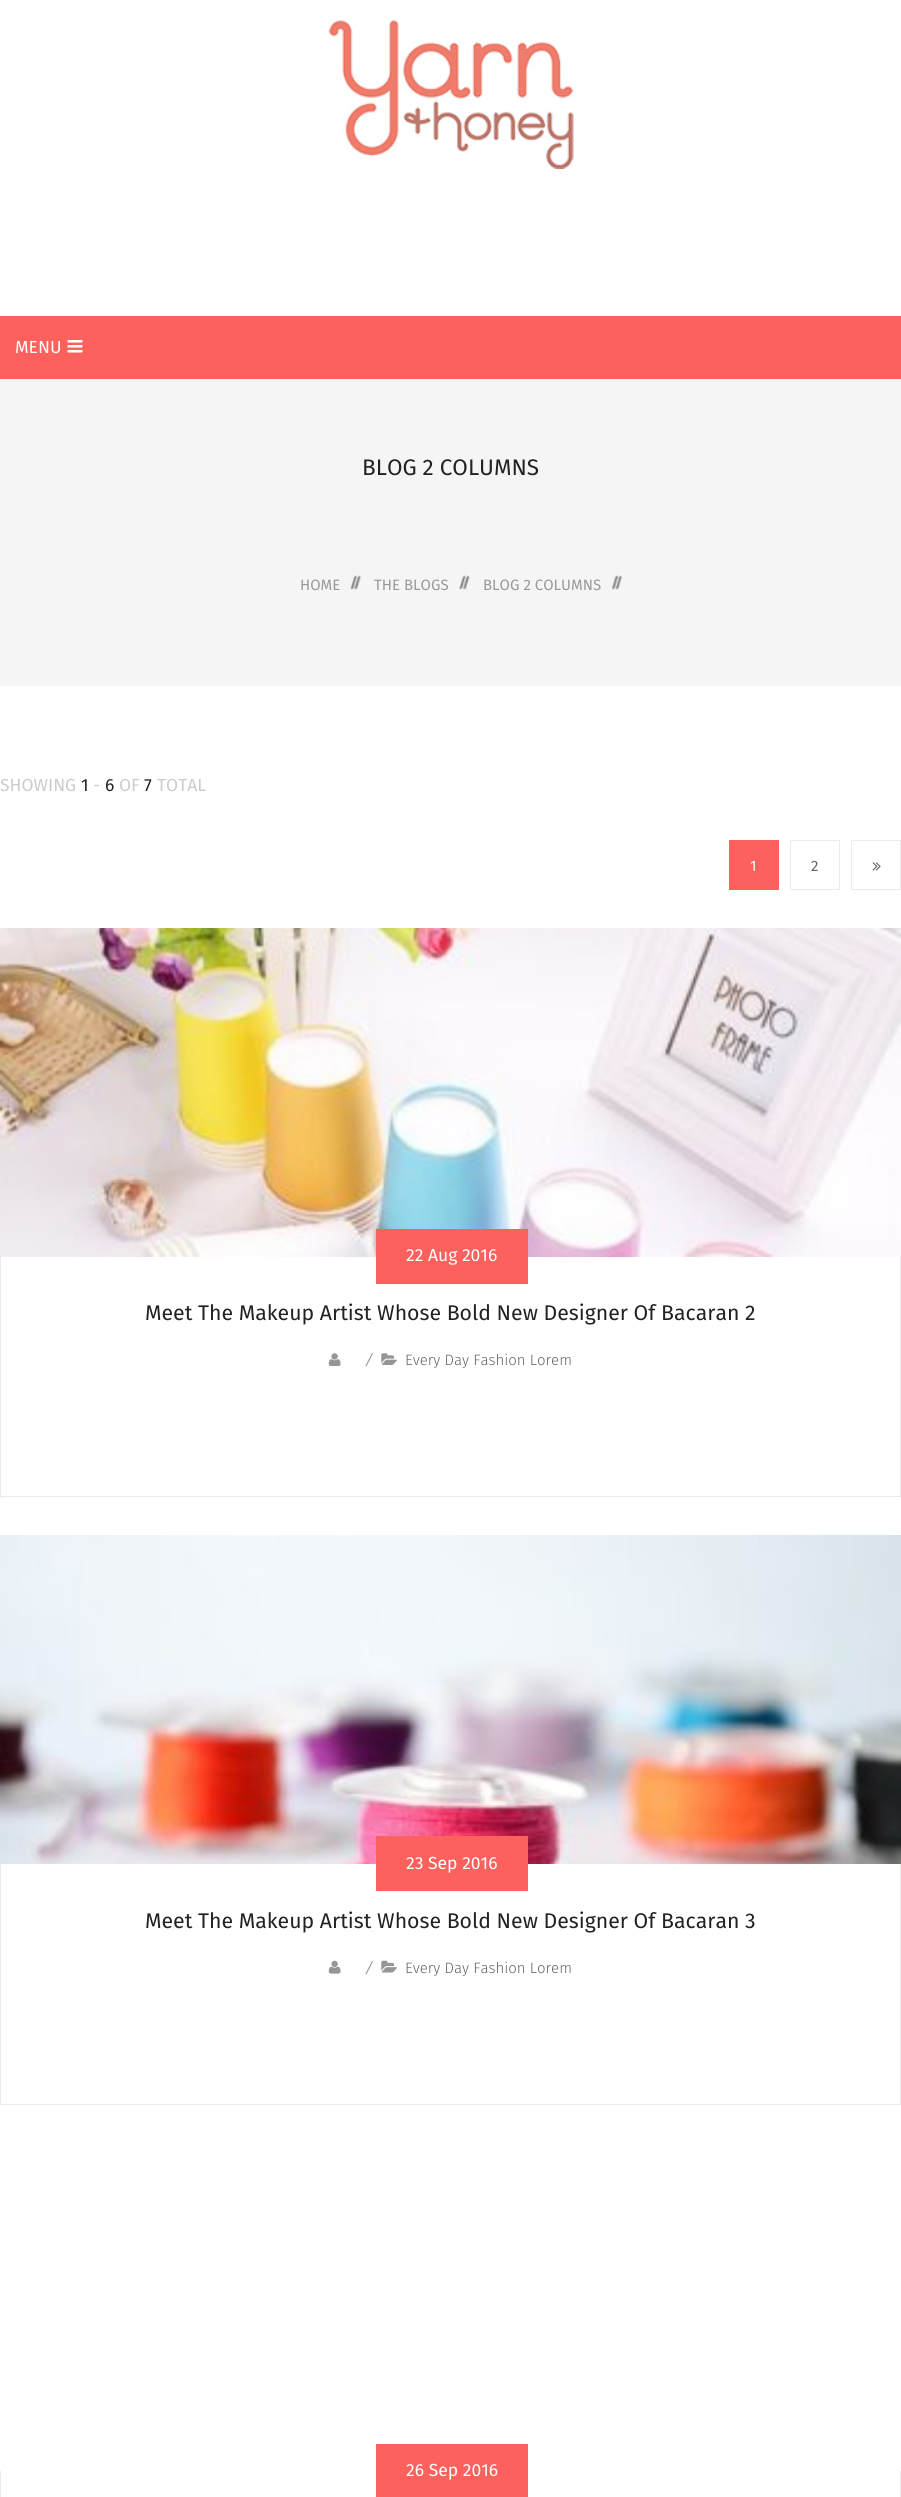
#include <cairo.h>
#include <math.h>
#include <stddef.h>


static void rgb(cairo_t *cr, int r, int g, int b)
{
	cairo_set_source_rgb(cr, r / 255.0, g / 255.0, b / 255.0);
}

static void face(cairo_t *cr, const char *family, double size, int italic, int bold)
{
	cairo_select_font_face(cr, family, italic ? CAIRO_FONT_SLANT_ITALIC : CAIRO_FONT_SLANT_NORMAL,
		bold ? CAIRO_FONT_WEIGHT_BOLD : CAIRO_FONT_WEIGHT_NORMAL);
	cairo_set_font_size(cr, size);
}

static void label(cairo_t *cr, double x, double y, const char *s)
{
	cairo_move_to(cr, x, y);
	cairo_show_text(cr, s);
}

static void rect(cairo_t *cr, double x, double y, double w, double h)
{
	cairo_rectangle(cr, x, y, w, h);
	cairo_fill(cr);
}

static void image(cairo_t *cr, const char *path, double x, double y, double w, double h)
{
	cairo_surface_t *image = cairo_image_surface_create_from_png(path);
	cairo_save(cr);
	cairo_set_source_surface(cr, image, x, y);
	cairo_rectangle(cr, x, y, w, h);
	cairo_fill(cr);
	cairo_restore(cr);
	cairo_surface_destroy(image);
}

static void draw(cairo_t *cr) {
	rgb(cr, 255, 255, 255);
	cairo_paint(cr);
	image(cr, "image0.png", 328, 20, 246, 149);
	rgb(cr, 252, 97, 93);
	rect(cr, 0, 316, 901, 63);
	face(cr, "Fira Sans", 17.5, 0, 0);
	rgb(cr, 255, 255, 255);
	label(cr, 15, 353, "MENU");
	image(cr, "image1.png", 67, 340, 16, 13);
	rgb(cr, 245, 245, 245);
	rect(cr, 0, 379, 901, 307);
	face(cr, "Fira Sans", 22.5, 0, 0);
	rgb(cr, 34, 34, 34);
	label(cr, 362, 475, "BLOG 2 COLUMNS");
	face(cr, "Fira Sans", 15, 0, 0);
	rgb(cr, 153, 153, 153);
	label(cr, 300, 590, "HOME");
	image(cr, "image2.png", 350, 575, 11, 15);
	label(cr, 374, 590, "THE BLOGS");
	image(cr, "image3.png", 459, 575, 11, 15);
	label(cr, 483, 590, "BLOG 2 COLUMNS");
	image(cr, "image4.png", 611, 575, 11, 15);
	face(cr, "Fira Sans", 17.5, 0, 0);
	rgb(cr, 204, 204, 204);
	label(cr, 0, 791, "SHOWING");
	rgb(cr, 34, 34, 34);
	label(cr, 81, 791, "1");
	rgb(cr, 204, 204, 204);
	label(cr, 93, 791, "-");
	rgb(cr, 34, 34, 34);
	label(cr, 105, 791, "6");
	rgb(cr, 204, 204, 204);
	label(cr, 119, 791, "OF");
	rgb(cr, 34, 34, 34);
	label(cr, 144, 791, "7");
	rgb(cr, 204, 204, 204);
	label(cr, 157, 791, "TOTAL");
	rgb(cr, 252, 97, 93);
	rect(cr, 729, 840, 50, 50);
	face(cr, "Fira Sans", 15, 0, 0);
	rgb(cr, 255, 255, 255);
	label(cr, 750, 871, "1");
	cairo_rectangle(cr, 790.5, 840.5, 49, 49);
	rgb(cr, 235, 235, 235);
	cairo_set_line_width(cr, 1);
	cairo_stroke(cr);
	rgb(cr, 102, 102, 102);
	label(cr, 811, 871, "2");
	cairo_rectangle(cr, 851.5, 840.5, 49, 49);
	rgb(cr, 235, 235, 235);
	cairo_stroke(cr);
	image(cr, "image5.png", 872, 862, 9, 9);
	image(cr, "image6.png", 0, 928, 901, 329);
	rect(cr, 900, 1256, 1, 242);
	rect(cr, 0, 1496, 901, 1);
	rect(cr, 0, 1256, 1, 242);
	rgb(cr, 252, 97, 93);
	rect(cr, 376, 1229, 152, 55);
	face(cr, "Fira Sans", 17.5, 0, 0);
	rgb(cr, 255, 255, 255);
	label(cr, 406, 1261, "22 Aug 2016");
	face(cr, "Fira Sans", 21.25, 0, 0);
	rgb(cr, 34, 34, 34);
	label(cr, 145, 1320, "Meet The Makeup Artist Whose Bold New Designer Of Bacaran 2");
	image(cr, "image7.png", 328, 1353, 13, 14);
	face(cr, "Fira Sans", 15, 1, 0);
	rgb(cr, 153, 153, 153);
	label(cr, 364, 1365, "/");
	image(cr, "image8.png", 381, 1353, 16, 12);
	face(cr, "Fira Sans Light", 15, 0, 0);
	rgb(cr, 102, 102, 102);
	label(cr, 405, 1365, "Every Day Fashion Lorem");
	image(cr, "image9.png", 0, 1535, 901, 329);
	rgb(cr, 235, 235, 235);
	rect(cr, 900, 1864, 1, 241);
	rect(cr, 0, 2104, 901, 1);
	rect(cr, 0, 1864, 1, 241);
	rgb(cr, 252, 97, 93);
	rect(cr, 376, 1836, 152, 55);
	face(cr, "Fira Sans", 17.5, 0, 0);
	rgb(cr, 255, 255, 255);
	label(cr, 406, 1869, "23 Sep 2016");
	face(cr, "Fira Sans", 21.25, 0, 0);
	rgb(cr, 34, 34, 34);
	label(cr, 145, 1928, "Meet The Makeup Artist Whose Bold New Designer Of Bacaran 3");
	image(cr, "image10.png", 328, 1960, 13, 14);
	face(cr, "Fira Sans", 15, 1, 0);
	rgb(cr, 153, 153, 153);
	label(cr, 364, 1973, "/");
	image(cr, "image11.png", 381, 1960, 16, 13);
	face(cr, "Fira Sans Light", 15, 0, 0);
	rgb(cr, 102, 102, 102);
	label(cr, 405, 1973, "Every Day Fashion Lorem");
	rgb(cr, 235, 235, 235);
	rect(cr, 900, 2471, 1, 26);
	rect(cr, 0, 2471, 1, 26);
	rgb(cr, 252, 97, 93);
	rect(cr, 376, 2444, 152, 53);
	face(cr, "Fira Sans", 17.5, 0, 0);
	rgb(cr, 255, 255, 255);
	label(cr, 406, 2476, "26 Sep 2016");
}

int main(void) {
	cairo_surface_t *surface = cairo_image_surface_create(CAIRO_FORMAT_RGB24, 901, 2497);
	cairo_t *cr = cairo_create(surface);
	cairo_font_options_t *options = cairo_font_options_create();
	cairo_font_options_set_hint_metrics(options, CAIRO_HINT_METRICS_OFF);
	cairo_font_options_set_hint_style(options, CAIRO_HINT_STYLE_NONE);
	cairo_set_font_options(cr, options);
	cairo_set_miter_limit(cr, 4);
	draw(cr);
	cairo_surface_write_to_png(surface, "render.png");
	cairo_font_options_destroy(options);
	cairo_destroy(cr);
	cairo_surface_destroy(surface);
	return 0;
}
